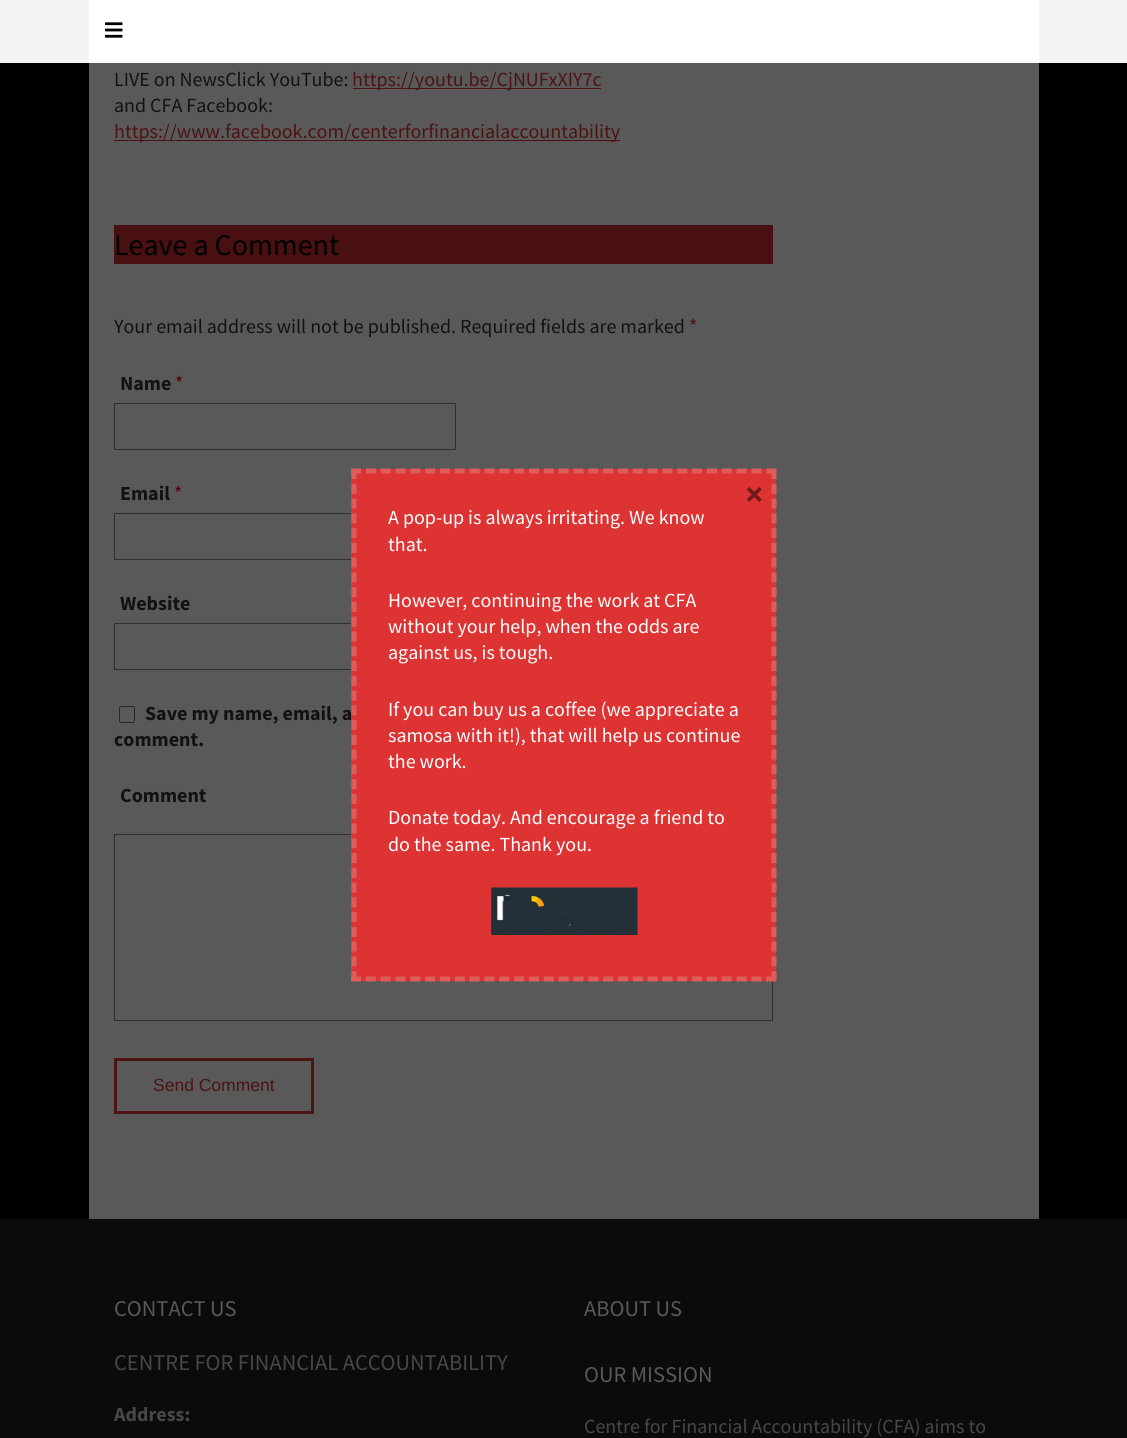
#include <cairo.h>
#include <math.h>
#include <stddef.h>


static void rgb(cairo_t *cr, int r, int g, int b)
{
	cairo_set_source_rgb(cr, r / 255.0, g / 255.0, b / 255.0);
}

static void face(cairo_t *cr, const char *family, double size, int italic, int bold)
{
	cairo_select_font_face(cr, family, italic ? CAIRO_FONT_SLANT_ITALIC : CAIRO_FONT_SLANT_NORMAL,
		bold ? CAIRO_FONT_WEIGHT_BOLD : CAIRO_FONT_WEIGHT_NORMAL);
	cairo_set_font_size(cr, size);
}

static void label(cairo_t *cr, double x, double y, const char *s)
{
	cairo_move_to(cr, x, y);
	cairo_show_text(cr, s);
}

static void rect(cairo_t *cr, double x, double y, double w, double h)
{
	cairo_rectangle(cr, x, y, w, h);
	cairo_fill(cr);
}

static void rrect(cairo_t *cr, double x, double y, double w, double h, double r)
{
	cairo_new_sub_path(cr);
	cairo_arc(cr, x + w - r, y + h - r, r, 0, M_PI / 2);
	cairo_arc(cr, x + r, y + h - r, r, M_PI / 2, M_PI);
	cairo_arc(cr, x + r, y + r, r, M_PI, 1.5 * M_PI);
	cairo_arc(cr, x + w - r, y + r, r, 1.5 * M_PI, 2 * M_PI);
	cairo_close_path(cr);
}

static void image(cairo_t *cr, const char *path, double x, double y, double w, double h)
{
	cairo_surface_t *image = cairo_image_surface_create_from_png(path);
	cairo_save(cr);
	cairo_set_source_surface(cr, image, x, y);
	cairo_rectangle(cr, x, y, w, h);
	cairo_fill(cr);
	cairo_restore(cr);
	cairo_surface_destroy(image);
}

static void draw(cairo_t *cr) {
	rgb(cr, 0, 0, 0);
	cairo_paint(cr);
	cairo_set_source_rgba(cr, 1, 1, 1, 0.95);
	rect(cr, 0, 0, 1127, 63);
	rgb(cr, 255, 255, 255);
	rect(cr, 89, 0, 950, 63);
	image(cr, "image0.png", 105, 22, 18, 16);
	rgb(cr, 89, 89, 89);
	rect(cr, 89, 63, 950, 1156);
	face(cr, "Source Sans Pro", 20, 0, 0);
	rgb(cr, 18, 18, 18);
	label(cr, 114, 86, "LIVE on NewsClick YouTube:");
	rgb(cr, 77, 18, 18);
	rect(cr, 353, 88, 248, 1);
	label(cr, 352, 86, "https://youtu.be/CjNUFxXIY7c");
	rgb(cr, 18, 18, 18);
	label(cr, 114, 112, "and CFA Facebook:");
	rgb(cr, 77, 18, 18);
	rect(cr, 114, 140, 506, 1);
	label(cr, 114, 138, "https://www.facebook.com/centerforfinancialaccountability");
	rgb(cr, 72, 16, 16);
	rect(cr, 114, 225, 659, 39);
	face(cr, "Source Sans Pro", 30, 0, 0);
	rgb(cr, 0, 0, 0);
	label(cr, 114, 255, "Leave a Comment");
	face(cr, "Source Sans Pro", 20, 0, 0);
	rgb(cr, 18, 18, 18);
	label(cr, 114, 333, "Your email address will not be published. Required fields are marked");
	rgb(cr, 77, 18, 18);
	label(cr, 689, 333, "*");
	face(cr, "Source Sans Pro", 20, 0, 1);
	rgb(cr, 18, 18, 18);
	label(cr, 120, 390, "Name");
	face(cr, "Source Sans Pro", 20, 0, 0);
	rgb(cr, 89, 0, 0);
	label(cr, 175, 390, "*");
	cairo_rectangle(cr, 114.5, 403.5, 341, 46);
	rgb(cr, 48, 48, 48);
	cairo_set_line_width(cr, 1);
	cairo_stroke(cr);
	face(cr, "Source Sans Pro", 20, 0, 1);
	rgb(cr, 18, 18, 18);
	label(cr, 120, 500, "Email");
	face(cr, "Source Sans Pro", 20, 0, 0);
	rgb(cr, 89, 0, 0);
	label(cr, 174, 500, "*");
	cairo_rectangle(cr, 114.5, 513.5, 341, 46);
	rgb(cr, 48, 48, 48);
	cairo_stroke(cr);
	face(cr, "Source Sans Pro", 20, 0, 1);
	rgb(cr, 18, 18, 18);
	label(cr, 120, 610, "Website");
	cairo_rectangle(cr, 114.5, 623.5, 341, 46);
	rgb(cr, 48, 48, 48);
	cairo_stroke(cr);
	rrect(cr, 119.5, 706.5, 15, 16, 2);
	rgb(cr, 41, 41, 41);
	cairo_stroke(cr);
	rgb(cr, 18, 18, 18);
	label(cr, 145, 720, "Save my name, email, a");
	label(cr, 114, 746, "comment.");
	label(cr, 120, 802, "Comment");
	cairo_rectangle(cr, 114.5, 834.5, 658, 186);
	rgb(cr, 48, 48, 48);
	cairo_stroke(cr);
	cairo_rectangle(cr, 115.5, 1059.5, 197, 53);
	rgb(cr, 77, 18, 18);
	cairo_set_line_width(cr, 3);
	cairo_stroke(cr);
	face(cr, "Liberation Sans", 17.5, 0, 0);
	label(cr, 153, 1091, "Send Comment");
	rgb(cr, 11, 11, 11);
	rect(cr, 0, 1219, 1127, 219);
	face(cr, "Source Sans Pro", 22.5, 0, 0);
	rgb(cr, 89, 89, 89);
	label(cr, 114, 1316, "CONTACT US");
	rgb(cr, 71, 71, 71);
	label(cr, 114, 1370, "CENTRE FOR FINANCIAL ACCOUNTABILITY");
	face(cr, "Source Sans Pro", 20, 0, 1);
	label(cr, 114, 1421, "Address:");
	face(cr, "Source Sans Pro", 22.5, 0, 0);
	rgb(cr, 89, 89, 89);
	label(cr, 584, 1316, "ABOUT US");
	label(cr, 584, 1382, "OUR MISSION");
	face(cr, "Source Sans Pro", 20, 0, 0);
	rgb(cr, 71, 71, 71);
	label(cr, 584, 1433, "Centre for Financial Accountability (CFA) aims to");
	rgb(cr, 221, 51, 51);
	rect(cr, 351, 469, 425, 512);
	cairo_new_path(cr);
	cairo_move_to(cr, 351, 471);
	cairo_line_to(cr, 776, 471);
	rgb(cr, 221, 93, 93);
	cairo_set_line_width(cr, 5);
	cairo_set_dash(cr, (double[]){10, 4.83}, 2, 0);
	cairo_stroke(cr);
	cairo_new_path(cr);
	cairo_move_to(cr, 774, 469);
	cairo_line_to(cr, 774, 981);
	cairo_set_dash(cr, (double[]){10, 4.77}, 2, 0);
	cairo_stroke(cr);
	cairo_new_path(cr);
	cairo_move_to(cr, 351, 979);
	cairo_line_to(cr, 776, 979);
	cairo_set_dash(cr, (double[]){10, 4.83}, 2, 0);
	cairo_stroke(cr);
	cairo_new_path(cr);
	cairo_move_to(cr, 354, 469);
	cairo_line_to(cr, 354, 981);
	cairo_set_dash(cr, (double[]){10, 4.77}, 2, 0);
	cairo_stroke(cr);
	face(cr, "Source Sans Pro", 35, 0, 1);
	rgb(cr, 111, 26, 26);
	label(cr, 745, 506, "×");
	face(cr, "Source Sans Pro", 20, 0, 0);
	rgb(cr, 255, 255, 255);
	label(cr, 388, 524, "A pop-up is always irritating. We know");
	label(cr, 388, 551, "that.");
	label(cr, 388, 607, "However, continuing the work at CFA");
	label(cr, 388, 633, "without your help, when the odds are");
	label(cr, 388, 659, "against us, is tough.");
	label(cr, 388, 716, "If you can buy us a coffee (we appreciate a");
	label(cr, 388, 742, "samosa with it!), that will help us continue");
	label(cr, 388, 768, "the work.");
	label(cr, 388, 824, "Donate today. And encourage a friend to");
	label(cr, 388, 851, "do the same. Thank you.");
	image(cr, "image1.png", 491, 887, 147, 48);
}

int main(void) {
	cairo_surface_t *surface = cairo_image_surface_create(CAIRO_FORMAT_RGB24, 1127, 1438);
	cairo_t *cr = cairo_create(surface);
	cairo_font_options_t *options = cairo_font_options_create();
	cairo_font_options_set_hint_metrics(options, CAIRO_HINT_METRICS_OFF);
	cairo_font_options_set_hint_style(options, CAIRO_HINT_STYLE_NONE);
	cairo_set_font_options(cr, options);
	cairo_set_miter_limit(cr, 4);
	draw(cr);
	cairo_surface_write_to_png(surface, "render.png");
	cairo_font_options_destroy(options);
	cairo_destroy(cr);
	cairo_surface_destroy(surface);
	return 0;
}
